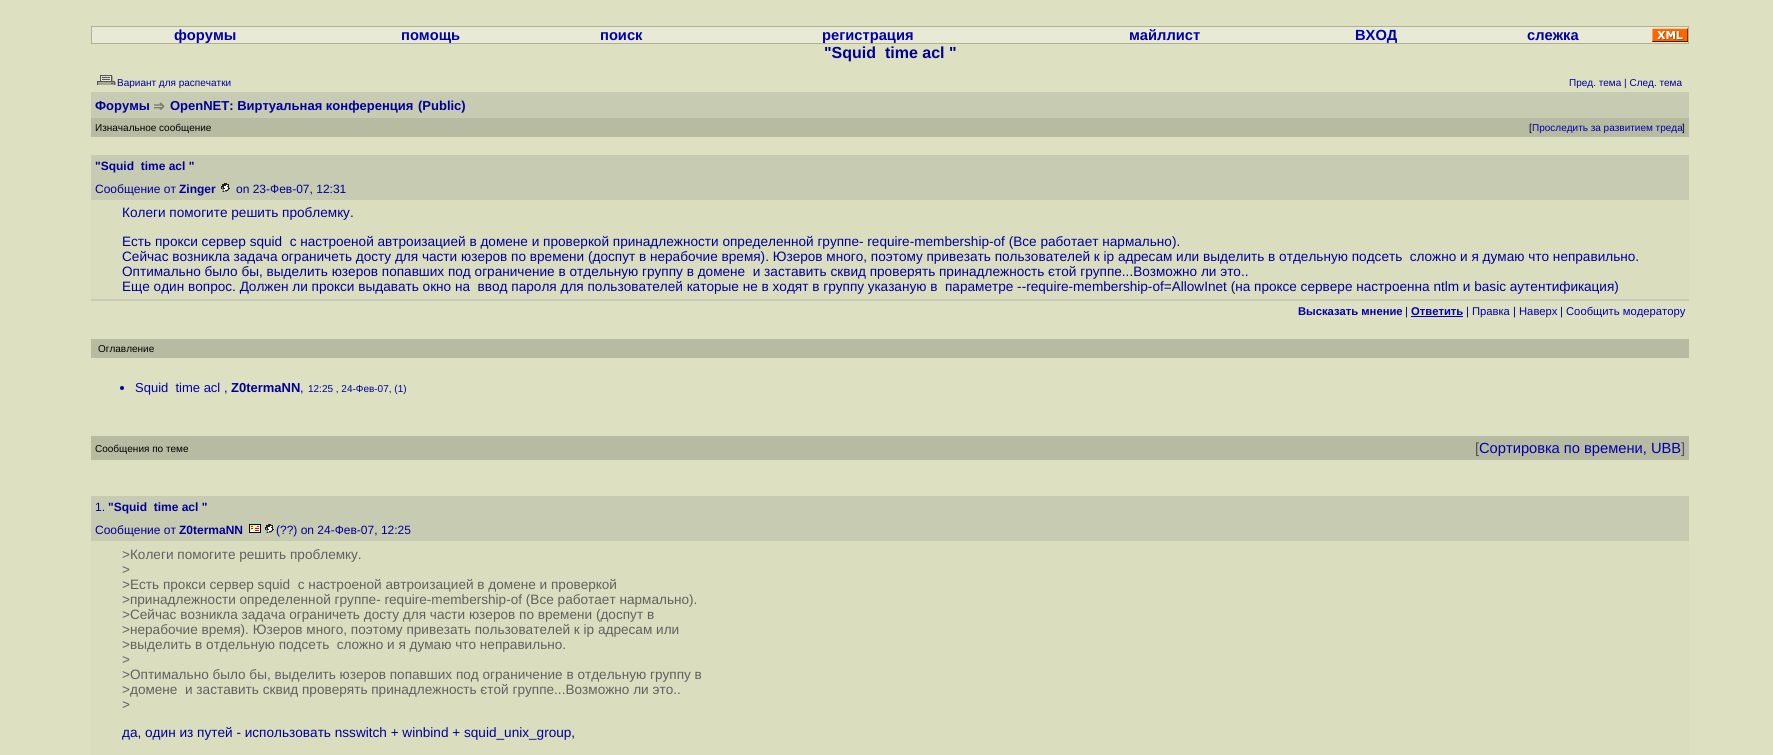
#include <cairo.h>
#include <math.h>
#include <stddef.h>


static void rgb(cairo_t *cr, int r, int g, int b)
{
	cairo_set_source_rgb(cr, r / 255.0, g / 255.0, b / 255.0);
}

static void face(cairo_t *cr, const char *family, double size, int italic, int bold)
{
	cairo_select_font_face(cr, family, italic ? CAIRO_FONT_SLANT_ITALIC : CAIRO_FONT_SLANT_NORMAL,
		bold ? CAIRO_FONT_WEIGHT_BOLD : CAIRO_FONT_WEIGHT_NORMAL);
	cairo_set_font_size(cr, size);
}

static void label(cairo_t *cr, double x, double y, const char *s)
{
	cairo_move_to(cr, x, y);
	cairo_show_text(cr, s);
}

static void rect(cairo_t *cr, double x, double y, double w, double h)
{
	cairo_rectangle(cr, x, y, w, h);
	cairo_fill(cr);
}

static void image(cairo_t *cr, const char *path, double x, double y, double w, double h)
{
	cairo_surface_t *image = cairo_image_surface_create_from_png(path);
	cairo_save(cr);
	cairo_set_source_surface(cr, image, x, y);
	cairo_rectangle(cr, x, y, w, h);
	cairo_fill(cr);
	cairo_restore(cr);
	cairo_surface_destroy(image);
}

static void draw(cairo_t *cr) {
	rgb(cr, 221, 225, 194);
	cairo_paint(cr);
	rgb(cr, 176, 177, 144);
	rect(cr, 91, 26, 1598, 18);
	rgb(cr, 233, 234, 214);
	rect(cr, 92, 27, 1596, 16);
	face(cr, "Liberation Sans", 14.7, 0, 1);
	rgb(cr, 0, 0, 173);
	label(cr, 174, 40, "форумы");
	label(cr, 401, 40, "помощь");
	label(cr, 600, 40, "поиск");
	label(cr, 822, 40, "регистрация");
	label(cr, 1129, 40, "майллист");
	label(cr, 1355, 40, "ВХОД");
	label(cr, 1527, 40, "слежка");
	image(cr, "image0.png", 1652, 28, 36, 14);
	face(cr, "Liberation Sans", 16, 0, 1);
	rgb(cr, 0, 0, 153);
	label(cr, 824, 58, "\"Squid  time acl \"");
	image(cr, "image1.png", 97, 75, 19, 10);
	face(cr, "Liberation Sans", 10, 0, 0);
	label(cr, 117, 86, "Вариант для распечатки");
	label(cr, 1569, 86, "Пред. тема | След. тема");
	rgb(cr, 199, 203, 177);
	rect(cr, 91, 92, 1598, 26);
	face(cr, "Liberation Sans", 13, 0, 1);
	rgb(cr, 0, 0, 153);
	label(cr, 95, 110, "Форумы");
	image(cr, "image2.png", 154, 102, 11, 8);
	label(cr, 170, 110, "OpenNET: Виртуальная конференция");
	label(cr, 418, 110, "(Public)");
	rgb(cr, 183, 187, 161);
	rect(cr, 91, 118, 1598, 19);
	face(cr, "Liberation Sans", 10, 0, 0);
	rgb(cr, 0, 0, 0);
	label(cr, 95, 131, "Изначальное сообщение");
	label(cr, 1529, 131, "[");
	rgb(cr, 0, 0, 173);
	label(cr, 1532, 131, "Проследить за развитием треда");
	rgb(cr, 0, 0, 0);
	label(cr, 1682, 131, "]");
	rgb(cr, 199, 203, 177);
	rect(cr, 91, 155, 1598, 45);
	face(cr, "Liberation Sans", 12, 0, 1);
	rgb(cr, 0, 0, 153);
	label(cr, 95, 170, "\"Squid  time acl \"");
	face(cr, "Liberation Sans", 12, 0, 0);
	label(cr, 95, 193, "Сообщение от");
	face(cr, "Liberation Sans", 12, 0, 1);
	label(cr, 179, 193, "Zinger");
	image(cr, "image3.png", 221, 183, 9, 9);
	face(cr, "Liberation Sans", 12, 0, 0);
	label(cr, 236, 193, "on 23-Фев-07, 12:31");
	rgb(cr, 218, 222, 191);
	rect(cr, 91, 200, 1598, 99);
	face(cr, "Liberation Sans", 13.6, 0, 0);
	rgb(cr, 0, 0, 153);
	label(cr, 122, 217, "Колеги помогите решить проблемку.");
	label(cr, 122, 246, "Есть прокси сервер squid  с настроеной автроизацией в домене и проверкой принадлежности определенной группе- require-membership-of (Все работает нармально).");
	label(cr, 122, 261, "Сейчас возникла задача ограничеть досту для части юзеров по времени (доспут в нерабочие время). Юзеров много, поэтому привезать пользователей к ip адресам или выделить в отдельную подсеть  сложно и я думаю что неправильно.");
	label(cr, 122, 276, "Оптимально было бы, выделить юзеров попавших под ограничение в отдельную группу в домене  и заставить сквид проверять принадлежность єтой группе...Возможно ли это..");
	label(cr, 122, 291, "Еще один вопрос. Должен ли прокси выдавать окно на  ввод пароля для пользователей каторые не в ходят в группу указаную в  параметре --require-membership-of=AllowInet (на проксе сервере настроенна ntlm и basic аутентификация)");
	rgb(cr, 201, 202, 182);
	rect(cr, 91, 299, 1598, 2);
	face(cr, "Liberation Sans", 11.25, 0, 1);
	rgb(cr, 0, 0, 173);
	label(cr, 1298, 315, "Высказать мнение");
	face(cr, "Liberation Sans", 11.25, 0, 0);
	rgb(cr, 0, 0, 153);
	label(cr, 1405, 315, "|");
	face(cr, "Liberation Sans", 11.25, 0, 1);
	rgb(cr, 0, 0, 173);
	label(cr, 1411, 315, "Ответить");
	rect(cr, 1411, 316, 52, 1);
	face(cr, "Liberation Sans", 11.25, 0, 0);
	rgb(cr, 0, 0, 153);
	label(cr, 1466, 315, "|");
	rgb(cr, 0, 0, 173);
	label(cr, 1472, 315, "Правка");
	rgb(cr, 0, 0, 153);
	label(cr, 1513, 315, "|");
	rgb(cr, 0, 0, 173);
	label(cr, 1519, 315, "Наверх");
	rgb(cr, 0, 0, 153);
	label(cr, 1560, 315, "|");
	rgb(cr, 0, 0, 173);
	label(cr, 1566, 315, "Cообщить модератору");
	rgb(cr, 183, 187, 161);
	rect(cr, 91, 339, 1598, 19);
	face(cr, "Liberation Sans", 10, 0, 0);
	rgb(cr, 0, 0, 0);
	label(cr, 98, 352, "Оглавление");
	rgb(cr, 0, 0, 153);
	cairo_new_path(cr);
	cairo_arc(cr, 122, 388, 2, 0, 2 * M_PI);
	cairo_fill(cr);
	face(cr, "Liberation Sans", 13, 0, 0);
	rgb(cr, 0, 0, 173);
	label(cr, 135, 392, "Squid  time acl");
	face(cr, "Liberation Sans", 13, 0, 1);
	rgb(cr, 0, 0, 153);
	label(cr, 231, 392, "Z0termaNN");
	face(cr, "Liberation Sans", 10, 0, 0);
	label(cr, 308, 392, "12:25 , 24-Фев-07, (1)");
	face(cr, "Liberation Sans", 13, 0, 0);
	label(cr, 224, 392, ",");
	label(cr, 300, 392, ",");
	rgb(cr, 183, 187, 161);
	rect(cr, 91, 436, 1598, 24);
	face(cr, "Liberation Sans", 10, 0, 0);
	rgb(cr, 0, 0, 0);
	label(cr, 95, 452, "Сообщения по теме");
	face(cr, "Liberation Sans", 14.7, 0, 0);
	rgb(cr, 80, 80, 80);
	label(cr, 1475, 453, "[");
	rgb(cr, 0, 0, 173);
	label(cr, 1479, 453, "Сортировка по времени, UBB");
	rgb(cr, 80, 80, 80);
	label(cr, 1681, 453, "]");
	rgb(cr, 199, 203, 177);
	rect(cr, 91, 496, 1598, 45);
	face(cr, "Liberation Sans", 12, 0, 0);
	rgb(cr, 0, 0, 153);
	label(cr, 95, 511, "1.");
	face(cr, "Liberation Sans", 12, 0, 1);
	label(cr, 108, 511, "\"Squid  time acl \"");
	face(cr, "Liberation Sans", 12, 0, 0);
	label(cr, 95, 534, "Сообщение от");
	face(cr, "Liberation Sans", 12, 0, 1);
	label(cr, 179, 534, "Z0termaNN");
	image(cr, "image4.png", 249, 524, 12, 9);
	image(cr, "image3.png", 265, 524, 9, 9);
	face(cr, "Liberation Sans", 12, 0, 0);
	label(cr, 276, 534, "(?\077) on 24-Фев-07, 12:25");
	rgb(cr, 218, 222, 191);
	rect(cr, 91, 541, 1598, 214);
	face(cr, "Liberation Sans", 13.6, 0, 0);
	rgb(cr, 96, 96, 96);
	label(cr, 122, 559, ">Колеги помогите решить проблемку.");
	label(cr, 122, 574, ">");
	label(cr, 122, 589, ">Есть прокси сервер squid  с настроеной автроизацией в домене и проверкой");
	label(cr, 122, 604, ">принадлежности определенной группе- require-membership-of (Все работает нармально).");
	label(cr, 122, 619, ">Сейчас возникла задача ограничеть досту для части юзеров по времени (доспут в");
	label(cr, 122, 634, ">нерабочие время). Юзеров много, поэтому привезать пользователей к ip адресам или");
	label(cr, 122, 649, ">выделить в отдельную подсеть  сложно и я думаю что неправильно.");
	label(cr, 122, 664, ">");
	label(cr, 122, 679, ">Оптимально было бы, выделить юзеров попавших под ограничение в отдельную группу в");
	label(cr, 122, 694, ">домене  и заставить сквид проверять принадлежность єтой группе...Возможно ли это..");
	label(cr, 122, 709, ">");
	rgb(cr, 0, 0, 153);
	label(cr, 122, 737, "да, один из путей - использовать nsswitch + winbind + squid_unix_group,");
}

int main(void) {
	cairo_surface_t *surface = cairo_image_surface_create(CAIRO_FORMAT_RGB24, 1773, 755);
	cairo_t *cr = cairo_create(surface);
	cairo_font_options_t *options = cairo_font_options_create();
	cairo_font_options_set_hint_metrics(options, CAIRO_HINT_METRICS_OFF);
	cairo_font_options_set_hint_style(options, CAIRO_HINT_STYLE_NONE);
	cairo_set_font_options(cr, options);
	cairo_set_miter_limit(cr, 4);
	draw(cr);
	cairo_surface_write_to_png(surface, "render.png");
	cairo_font_options_destroy(options);
	cairo_destroy(cr);
	cairo_surface_destroy(surface);
	return 0;
}
